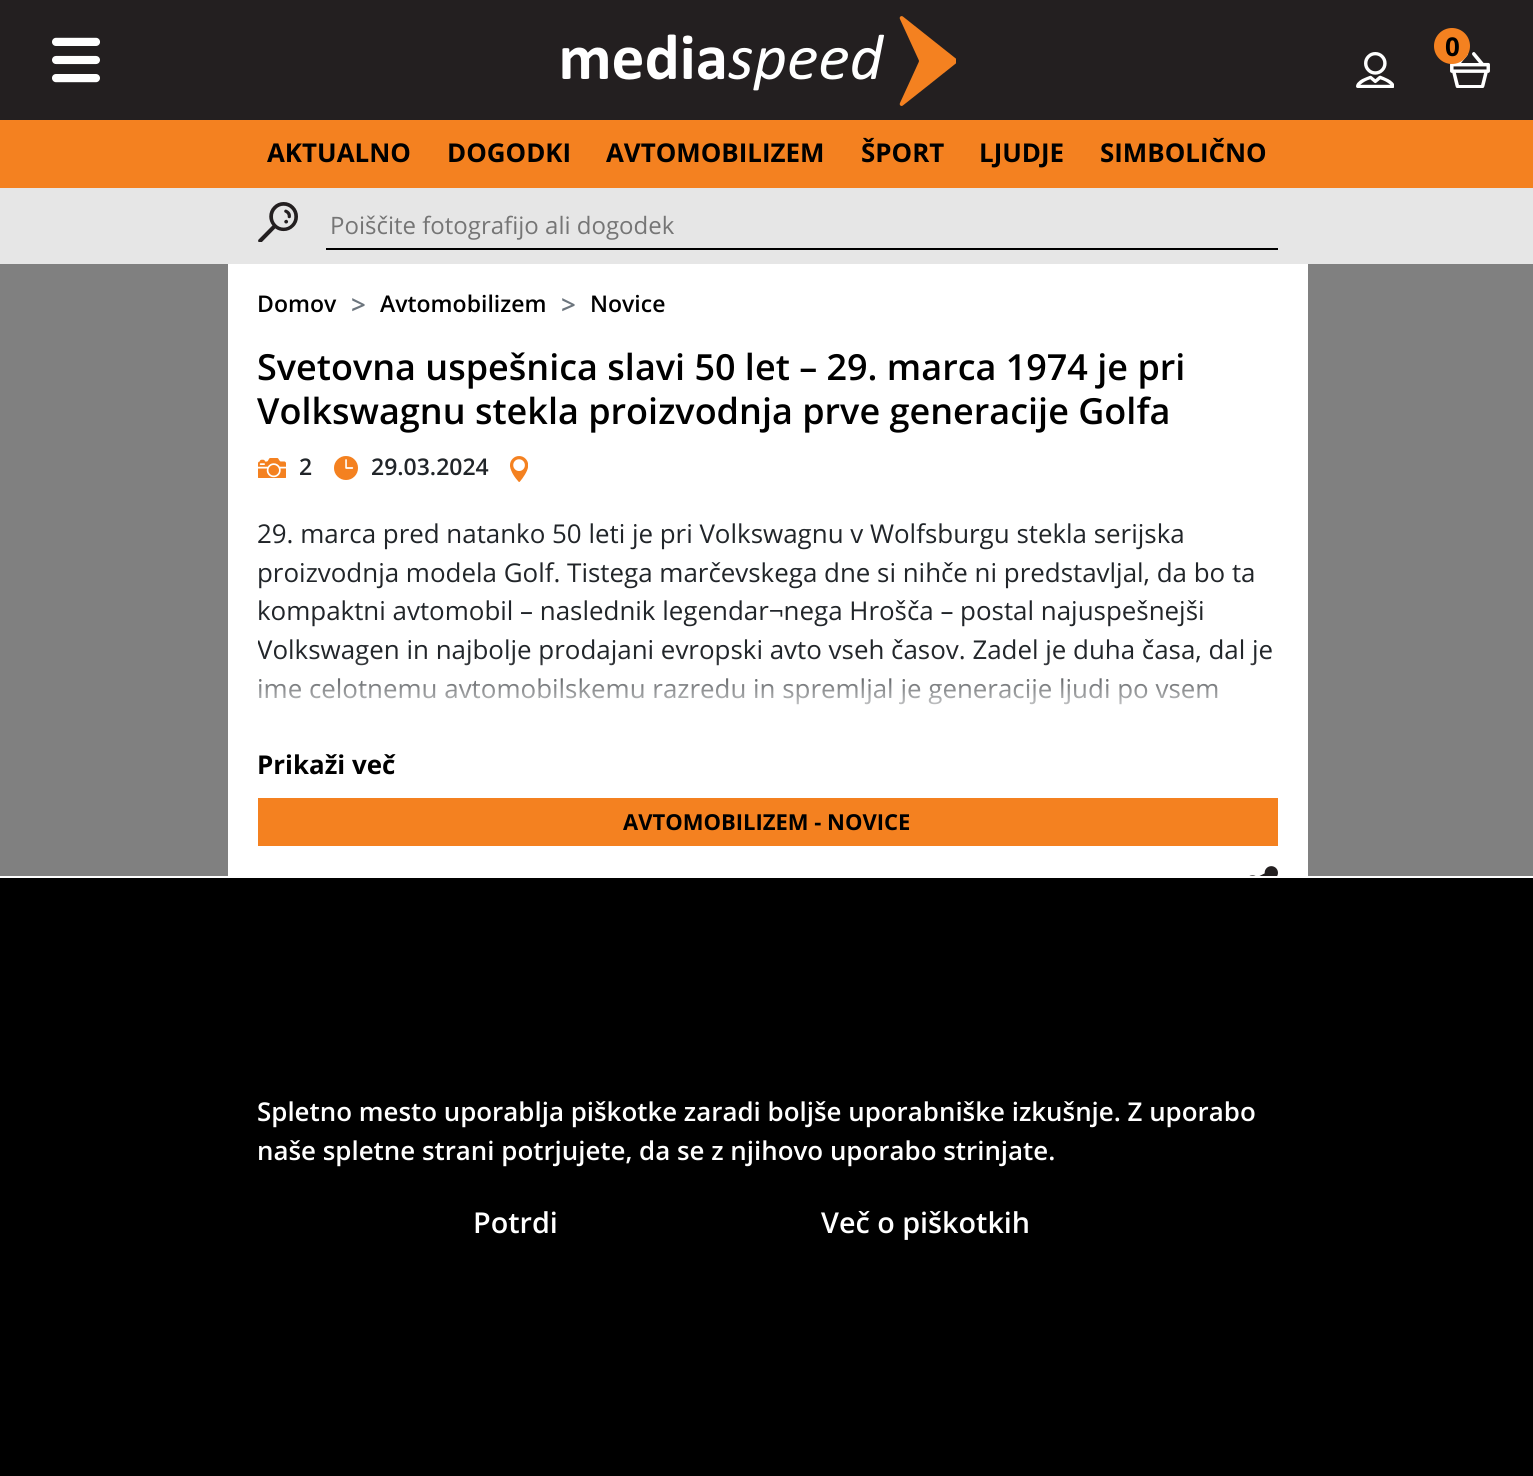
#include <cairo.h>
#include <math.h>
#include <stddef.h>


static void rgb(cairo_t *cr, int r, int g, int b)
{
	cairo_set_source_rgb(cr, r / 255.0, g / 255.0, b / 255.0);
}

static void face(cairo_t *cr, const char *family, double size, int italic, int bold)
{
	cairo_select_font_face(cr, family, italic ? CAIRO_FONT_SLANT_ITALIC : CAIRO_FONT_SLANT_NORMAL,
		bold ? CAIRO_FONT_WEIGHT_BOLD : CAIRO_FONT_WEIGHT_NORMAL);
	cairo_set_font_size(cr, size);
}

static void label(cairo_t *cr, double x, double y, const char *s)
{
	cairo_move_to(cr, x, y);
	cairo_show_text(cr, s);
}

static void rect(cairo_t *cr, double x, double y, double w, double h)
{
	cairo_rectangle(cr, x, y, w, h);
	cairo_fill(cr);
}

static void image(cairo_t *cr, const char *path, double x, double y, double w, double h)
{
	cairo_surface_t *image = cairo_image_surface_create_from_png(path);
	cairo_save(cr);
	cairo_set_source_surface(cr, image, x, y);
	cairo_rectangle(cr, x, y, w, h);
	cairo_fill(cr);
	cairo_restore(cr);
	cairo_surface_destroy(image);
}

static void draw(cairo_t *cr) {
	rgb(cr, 230, 230, 230);
	cairo_paint(cr);
	rgb(cr, 35, 31, 32);
	rect(cr, 0, 0, 1533, 120);
	image(cr, "image0.png", 52, 37, 48, 46);
	image(cr, "image1.png", 562, 16, 394, 90);
	image(cr, "image2.png", 1450, 52, 40, 36);
	rgb(cr, 244, 129, 32);
	cairo_arc(cr, 1452, 46, 18, 0, 2 * M_PI);
	cairo_fill(cr);
	face(cr, "Open Sans", 25.9, 0, 1);
	rgb(cr, 0, 0, 0);
	label(cr, 1445, 56, "0");
	image(cr, "image3.png", 1356, 52, 38, 36);
	rgb(cr, 244, 129, 32);
	rect(cr, 0, 120, 1533, 68);
	rgb(cr, 0, 0, 0);
	label(cr, 267, 162, "AKTUALNO");
	label(cr, 447, 162, "DOGODKI");
	label(cr, 606, 162, "AVTOMOBILIZEM");
	label(cr, 861, 162, "ŠPORT");
	label(cr, 979, 162, "LJUDJE");
	label(cr, 1100, 162, "SIMBOLIČNO");
	image(cr, "image4.png", 258, 202, 40, 40);
	rect(cr, 326, 248, 952, 2);
	face(cr, "Open Sans", 24, 0, 0);
	rgb(cr, 117, 117, 117);
	label(cr, 330, 234, "Poiščite fotografijo ali dogodek");
	rgb(cr, 128, 128, 128);
	rect(cr, 0, 264, 1533, 612);
	rgb(cr, 255, 255, 255);
	rect(cr, 228, 264, 1080, 612);
	face(cr, "Open Sans SemiBold", 23, 0, 0);
	rgb(cr, 0, 0, 0);
	label(cr, 257, 312, "Domov");
	face(cr, "Open Sans SemiBold", 25.9, 0, 0);
	rgb(cr, 108, 117, 125);
	label(cr, 351, 314, ">");
	face(cr, "Open Sans SemiBold", 23, 0, 0);
	rgb(cr, 0, 0, 0);
	label(cr, 380, 312, "Avtomobilizem");
	face(cr, "Open Sans SemiBold", 25.9, 0, 0);
	rgb(cr, 108, 117, 125);
	label(cr, 561, 314, ">");
	face(cr, "Open Sans SemiBold", 23, 0, 0);
	rgb(cr, 0, 0, 0);
	label(cr, 590, 312, "Novice");
	face(cr, "Open Sans SemiBold", 36, 0, 0);
	label(cr, 257, 380, "Svetovna uspešnica slavi 50 let – 29. marca 1974 je pri");
	label(cr, 257, 424, "Volkswagnu stekla proizvodnja prve generacije Golfa");
	image(cr, "image5.png", 258, 458, 28, 20);
	face(cr, "Open Sans SemiBold", 23, 0, 0);
	rgb(cr, 33, 37, 41);
	label(cr, 299, 475, "2");
	image(cr, "image6.png", 334, 456, 24, 24);
	label(cr, 371, 475, "29.03.2024");
	image(cr, "image7.png", 510, 456, 18, 26);
	face(cr, "Open Sans", 25.9, 0, 0);
	label(cr, 257, 543, "29. marca pred natanko 50 leti je pri Volkswagnu v Wolfsburgu stekla serijska");
	label(cr, 257, 582, "proizvodnja modela Golf. Tistega marčevskega dne si nihče ni predstavljal, da bo ta");
	label(cr, 257, 620, "kompaktni avtomobil – naslednik legendar¬nega Hrošča – postal najuspešnejši");
	cairo_save(cr);
	cairo_rectangle(cr, 258, 514, 1020, 202);
	cairo_clip(cr);
	label(cr, 257, 659, "Volkswagen in najbolje prodajani evropski avto vseh časov. Zadel je duha časa, dal je");
	cairo_restore(cr);
	label(cr, 257, 698, "ime celotnemu avtomobilskemu razredu in spremljal je generacije ljudi po vsem");
	image(cr, "image8.png", 259, 656, 1013, 49);
	face(cr, "Open Sans", 25.9, 0, 1);
	rgb(cr, 0, 0, 0);
	label(cr, 257, 774, "Prikaži več");
	rgb(cr, 244, 129, 32);
	rect(cr, 258, 798, 1020, 48);
	face(cr, "Open Sans", 22, 0, 1);
	rgb(cr, 0, 0, 0);
	label(cr, 623, 830, "AVTOMOBILIZEM - NOVICE");
	image(cr, "image9.png", 1249, 866, 29, 10);
	rect(cr, 0, 878, 1533, 598);
	rgb(cr, 255, 255, 255);
	rect(cr, 0, 876, 1533, 2);
	face(cr, "Open Sans SemiBold", 25.9, 0, 0);
	label(cr, 257, 1121, "Spletno mesto uporablja piškotke zaradi boljše uporabniške izkušnje. Z uporabo");
	label(cr, 257, 1160, "naše spletne strani potrjujete, da se z njihovo uporabo strinjate.");
	face(cr, "Open Sans SemiBold", 28.75, 0, 0);
	label(cr, 473, 1233, "Potrdi");
	label(cr, 821, 1233, "Več o piškotkih");
}

int main(void) {
	cairo_surface_t *surface = cairo_image_surface_create(CAIRO_FORMAT_RGB24, 1533, 1476);
	cairo_t *cr = cairo_create(surface);
	cairo_font_options_t *options = cairo_font_options_create();
	cairo_font_options_set_hint_metrics(options, CAIRO_HINT_METRICS_OFF);
	cairo_font_options_set_hint_style(options, CAIRO_HINT_STYLE_NONE);
	cairo_set_font_options(cr, options);
	cairo_set_miter_limit(cr, 4);
	draw(cr);
	cairo_surface_write_to_png(surface, "render.png");
	cairo_font_options_destroy(options);
	cairo_destroy(cr);
	cairo_surface_destroy(surface);
	return 0;
}
